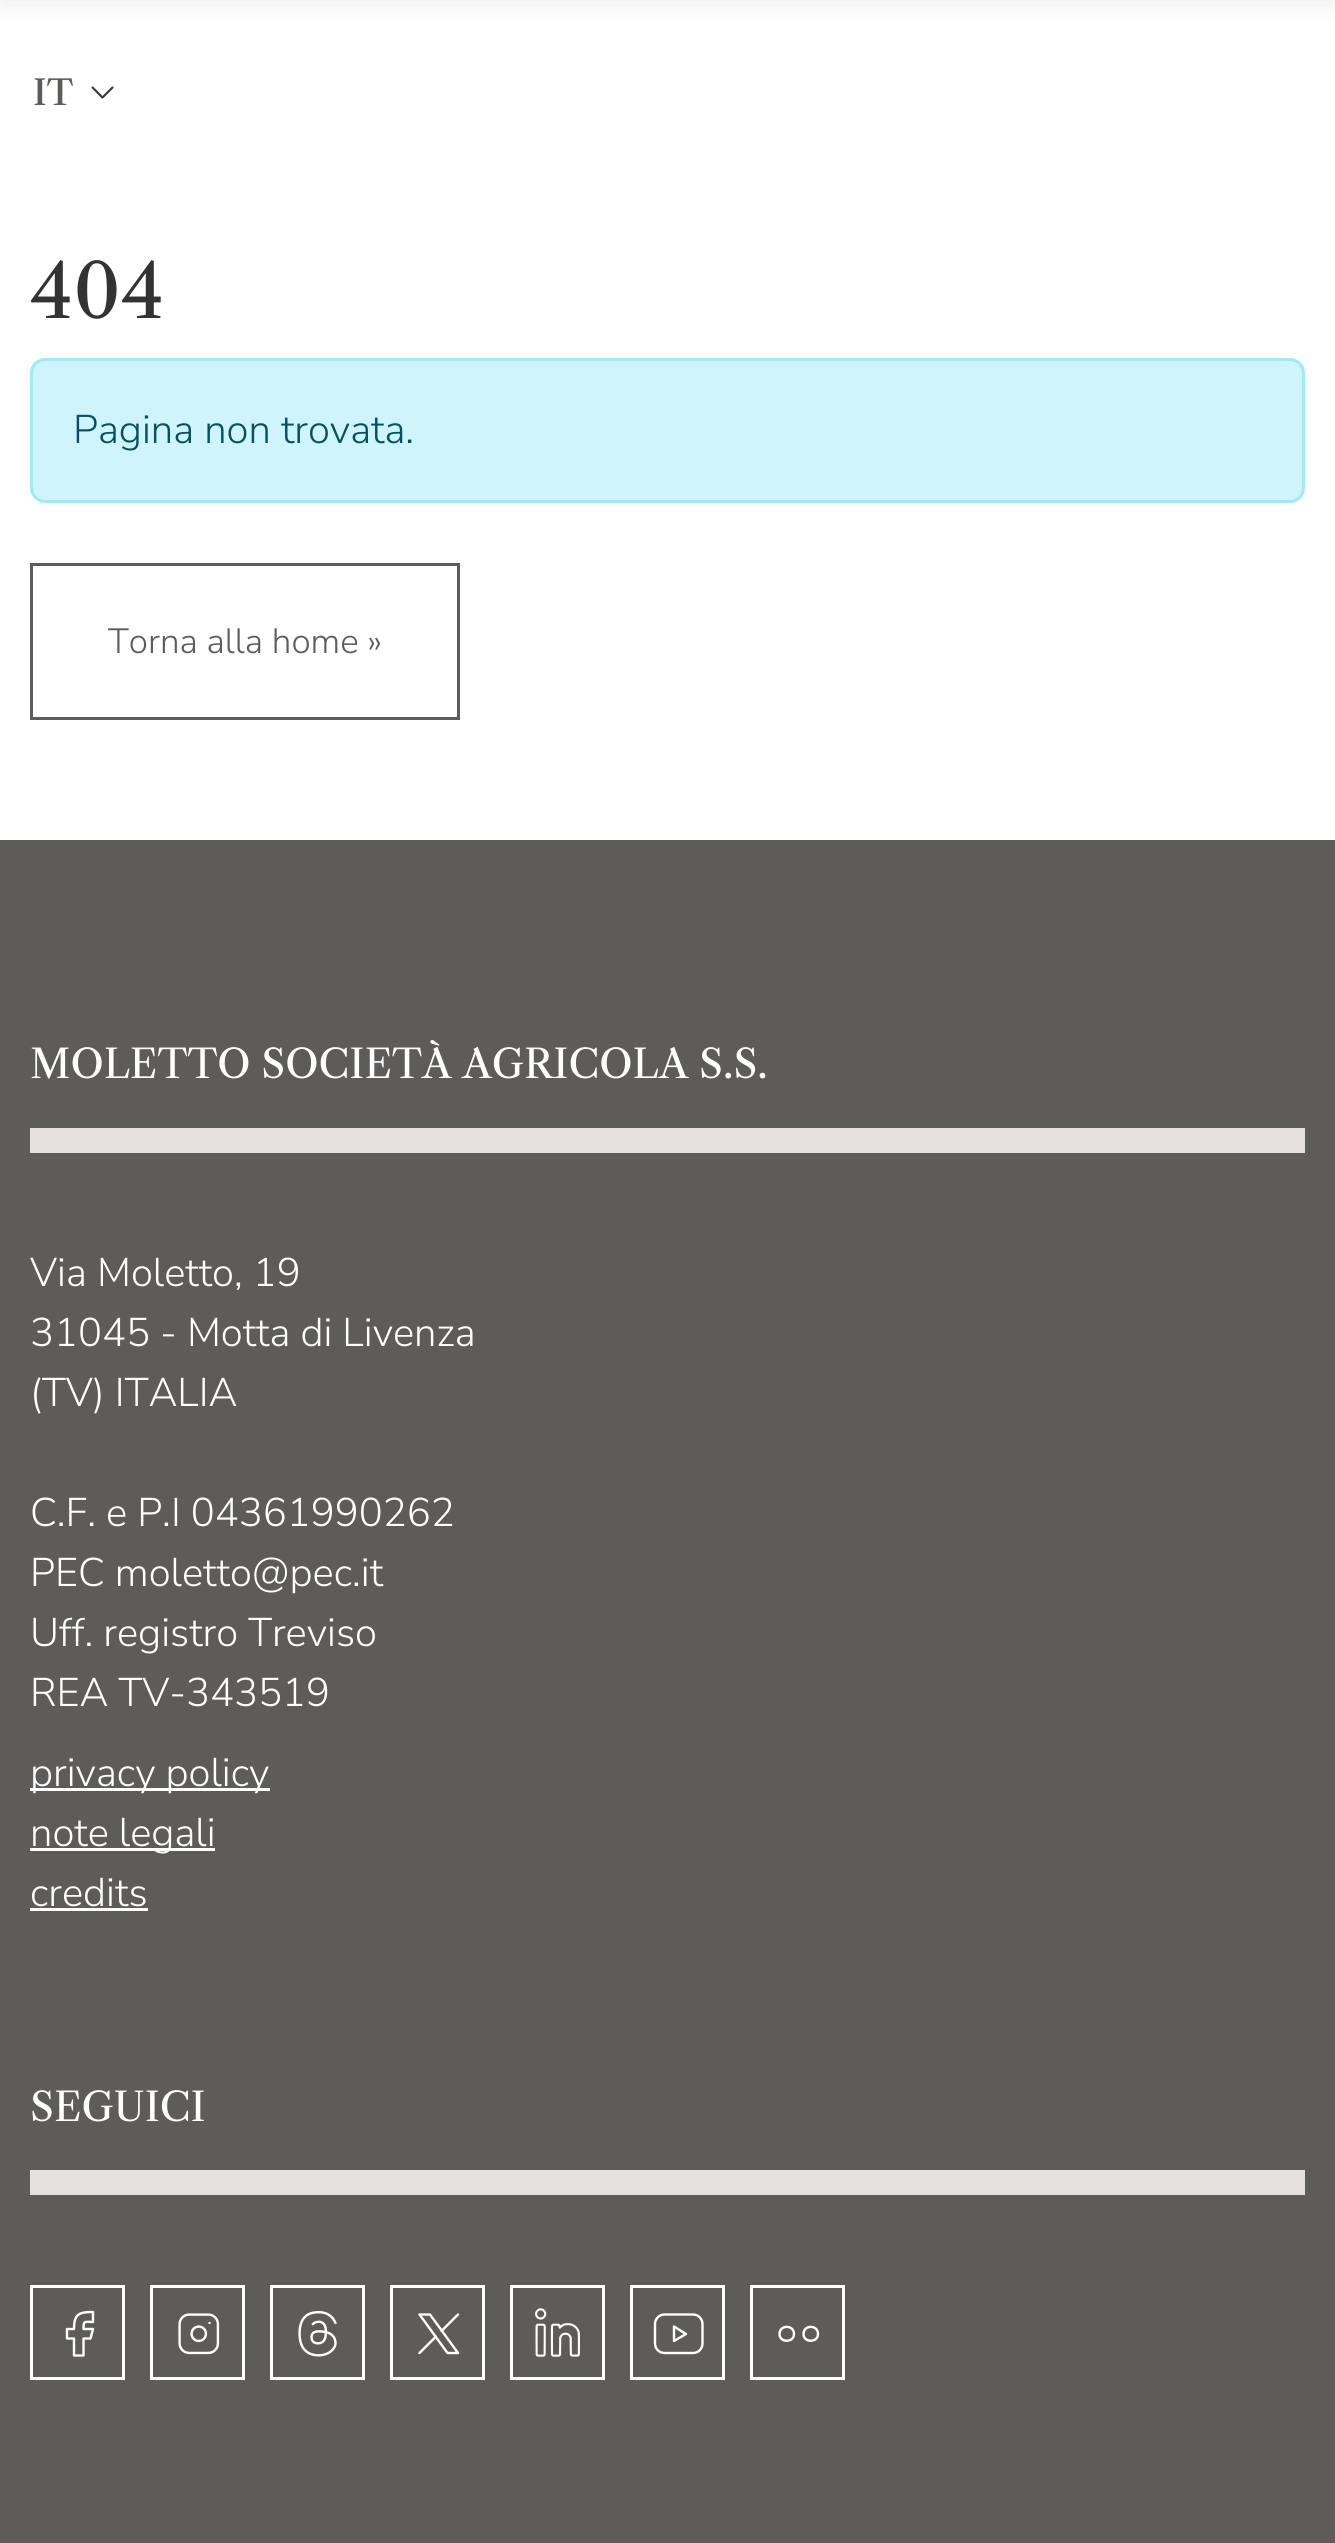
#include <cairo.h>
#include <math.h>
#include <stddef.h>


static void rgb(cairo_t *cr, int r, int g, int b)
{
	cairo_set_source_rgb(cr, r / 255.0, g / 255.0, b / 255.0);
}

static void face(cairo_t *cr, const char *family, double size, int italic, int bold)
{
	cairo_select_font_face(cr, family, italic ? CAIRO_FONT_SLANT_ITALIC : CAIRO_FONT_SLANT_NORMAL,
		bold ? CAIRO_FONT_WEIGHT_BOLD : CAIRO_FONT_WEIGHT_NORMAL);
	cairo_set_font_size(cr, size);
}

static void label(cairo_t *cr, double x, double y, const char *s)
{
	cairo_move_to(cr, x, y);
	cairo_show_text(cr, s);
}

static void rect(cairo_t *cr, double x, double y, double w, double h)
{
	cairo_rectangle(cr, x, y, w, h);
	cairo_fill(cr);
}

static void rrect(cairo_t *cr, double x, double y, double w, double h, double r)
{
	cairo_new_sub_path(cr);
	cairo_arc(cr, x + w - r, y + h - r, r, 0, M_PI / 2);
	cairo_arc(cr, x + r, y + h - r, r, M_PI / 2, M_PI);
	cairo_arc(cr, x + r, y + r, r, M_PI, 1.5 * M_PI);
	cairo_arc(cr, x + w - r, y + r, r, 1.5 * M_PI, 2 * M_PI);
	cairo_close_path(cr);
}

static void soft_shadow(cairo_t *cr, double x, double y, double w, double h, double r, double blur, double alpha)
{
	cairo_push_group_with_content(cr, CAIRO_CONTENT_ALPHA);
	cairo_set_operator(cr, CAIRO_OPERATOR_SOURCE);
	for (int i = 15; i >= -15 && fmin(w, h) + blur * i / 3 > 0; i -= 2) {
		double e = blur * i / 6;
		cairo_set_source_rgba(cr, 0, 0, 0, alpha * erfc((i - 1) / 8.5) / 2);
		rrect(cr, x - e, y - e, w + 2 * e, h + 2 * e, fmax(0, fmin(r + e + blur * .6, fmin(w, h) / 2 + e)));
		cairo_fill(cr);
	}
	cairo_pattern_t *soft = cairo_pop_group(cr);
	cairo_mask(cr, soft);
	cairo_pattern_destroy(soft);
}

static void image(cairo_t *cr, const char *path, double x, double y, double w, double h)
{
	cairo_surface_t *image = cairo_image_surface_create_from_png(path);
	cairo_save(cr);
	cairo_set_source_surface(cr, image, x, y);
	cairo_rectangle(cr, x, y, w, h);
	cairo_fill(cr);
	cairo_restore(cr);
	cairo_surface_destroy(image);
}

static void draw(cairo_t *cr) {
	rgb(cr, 255, 255, 255);
	cairo_paint(cr);
	rgb(cr, 0, 0, 0);
	soft_shadow(cr, 0, -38, 1335, 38, 0, 12.5, 0.1);
	face(cr, "Libre Caslon Text Medium", 35, 0, 0);
	rgb(cr, 93, 92, 90);
	label(cr, 33, 105, "IT");
	cairo_new_path(cr);
	cairo_move_to(cr, 92.5, 87.5);
	cairo_line_to(cr, 102.5, 97.5);
	cairo_line_to(cr, 112.5, 87.5);
	rgb(cr, 56, 53, 50);
	cairo_set_line_width(cr, 2.1);
	cairo_set_line_cap(cr, CAIRO_LINE_CAP_ROUND);
	cairo_set_line_join(cr, CAIRO_LINE_JOIN_ROUND);
	cairo_stroke(cr);
	face(cr, "Libre Caslon Text", 75, 0, 0);
	rgb(cr, 51, 51, 51);
	label(cr, 30, 318, "404");
	rgb(cr, 207, 244, 252);
	rrect(cr, 31.5, 359.5, 1272, 142, 13.5);
	cairo_fill_preserve(cr);
	rgb(cr, 158, 234, 249);
	cairo_set_line_width(cr, 3);
	cairo_set_line_cap(cr, CAIRO_LINE_CAP_BUTT);
	cairo_set_line_join(cr, CAIRO_LINE_JOIN_MITER);
	cairo_stroke(cr);
	face(cr, "Nunito Sans Light", 40, 0, 0);
	rgb(cr, 5, 81, 96);
	label(cr, 73, 443, "Pagina non trovata.");
	cairo_rectangle(cr, 31.5, 564.5, 427, 154);
	rgb(cr, 93, 92, 90);
	cairo_stroke(cr);
	face(cr, "Nunito Sans Light", 35, 0, 0);
	label(cr, 108, 653, "Torna alla home »");
	rect(cr, 0, 840, 1335, 1703);
	face(cr, "Libre Caslon Text", 40, 0, 0);
	rgb(cr, 255, 255, 255);
	label(cr, 30, 1078, "MOLETTO SOCIETÀ AGRICOLA S.S.");
	rgb(cr, 228, 224, 221);
	rect(cr, 30, 1128, 1275, 25);
	face(cr, "Nunito Sans Light", 40, 0, 0);
	rgb(cr, 255, 255, 255);
	label(cr, 30, 1286, "Via Moletto, 19");
	label(cr, 30, 1346, "31045 - Motta di Livenza");
	label(cr, 30, 1406, "(TV) ITALIA");
	label(cr, 30, 1526, "C.F. e P.I 04361990262");
	label(cr, 30, 1586, "PEC moletto@pec.it");
	label(cr, 30, 1646, "Uff. registro Treviso");
	label(cr, 30, 1706, "REA TV-343519");
	rect(cr, 30, 1788, 240, 3);
	label(cr, 30, 1786, "privacy policy");
	rect(cr, 30, 1848, 185, 3);
	label(cr, 30, 1846, "note legali");
	label(cr, 30, 1906, "credits");
	rect(cr, 30, 1908, 118, 3);
	face(cr, "Libre Caslon Text", 40, 0, 0);
	label(cr, 30, 2121, "SEGUICI");
	rgb(cr, 228, 224, 221);
	rect(cr, 30, 2170, 1275, 25);
	cairo_rectangle(cr, 31.5, 2286.5, 92, 92);
	rgb(cr, 255, 255, 255);
	cairo_stroke(cr);
	cairo_new_path(cr);
	cairo_move_to(cr, 67, 2329);
	cairo_line_to(cr, 67, 2338.5);
	cairo_line_to(cr, 74, 2338.5);
	cairo_line_to(cr, 74, 2355.5);
	cairo_line_to(cr, 83.5, 2355.5);
	cairo_line_to(cr, 83.5, 2338.5);
	cairo_line_to(cr, 90.5, 2338.5);
	cairo_line_to(cr, 93, 2329);
	cairo_line_to(cr, 83.5, 2329);
	cairo_curve_to(cr, 83.5, 2320, 84.5, 2322, 93, 2322);
	cairo_line_to(cr, 93, 2312);
	cairo_curve_to(cr, 79.5, 2312, 74, 2313.5, 74, 2329);
	cairo_line_to(cr, 67, 2329);
	cairo_set_line_width(cr, 2.4);
	cairo_set_line_cap(cr, CAIRO_LINE_CAP_ROUND);
	cairo_set_line_join(cr, CAIRO_LINE_JOIN_ROUND);
	cairo_stroke(cr);
	cairo_rectangle(cr, 151.5, 2286.5, 92, 92);
	cairo_set_line_width(cr, 3);
	cairo_set_line_cap(cr, CAIRO_LINE_CAP_BUTT);
	cairo_set_line_join(cr, CAIRO_LINE_JOIN_MITER);
	cairo_stroke(cr);
	image(cr, "image0.png", 178, 2313, 42, 42);
	cairo_rectangle(cr, 271.5, 2286.5, 92, 92);
	cairo_stroke(cr);
	image(cr, "image1.png", 298, 2311, 39, 46);
	cairo_rectangle(cr, 391.5, 2286.5, 92, 92);
	cairo_stroke(cr);
	cairo_new_path(cr);
	cairo_move_to(cr, 419.5, 2314.5);
	cairo_line_to(cr, 447.5, 2353);
	cairo_line_to(cr, 458, 2353);
	cairo_line_to(cr, 430, 2314.5);
	cairo_close_path(cr);
	cairo_move_to(cr, 419.5, 2353);
	cairo_line_to(cr, 436, 2336.5);
	cairo_move_to(cr, 441.5, 2331);
	cairo_line_to(cr, 458, 2314.5);
	cairo_set_line_width(cr, 2.4);
	cairo_set_line_cap(cr, CAIRO_LINE_CAP_ROUND);
	cairo_set_line_join(cr, CAIRO_LINE_JOIN_ROUND);
	cairo_stroke(cr);
	cairo_rectangle(cr, 511.5, 2286.5, 92, 92);
	cairo_set_line_width(cr, 3);
	cairo_set_line_cap(cr, CAIRO_LINE_CAP_BUTT);
	cairo_set_line_join(cr, CAIRO_LINE_JOIN_MITER);
	cairo_stroke(cr);
	image(cr, "image2.png", 535, 2308, 45, 49);
	cairo_rectangle(cr, 631.5, 2286.5, 92, 92);
	cairo_stroke(cr);
	cairo_new_path(cr);
	cairo_move_to(cr, 655, 2324);
	cairo_curve_to(cr, 655, 2319, 659, 2314.5, 664.5, 2314.5);
	cairo_line_to(cr, 693, 2314.5);
	cairo_curve_to(cr, 698.5, 2314.5, 702.5, 2319, 702.5, 2324);
	cairo_line_to(cr, 702.5, 2343.5);
	cairo_curve_to(cr, 702.5, 2348.5, 698.5, 2353, 693, 2353);
	cairo_line_to(cr, 664.5, 2353);
	cairo_curve_to(cr, 659, 2353, 655, 2348.5, 655, 2343.5);
	cairo_close_path(cr);
	cairo_move_to(cr, 674, 2326.5);
	cairo_line_to(cr, 686, 2334);
	cairo_line_to(cr, 674, 2341);
	cairo_close_path(cr);
	cairo_set_line_width(cr, 2.4);
	cairo_set_line_cap(cr, CAIRO_LINE_CAP_ROUND);
	cairo_set_line_join(cr, CAIRO_LINE_JOIN_ROUND);
	cairo_stroke(cr);
	cairo_rectangle(cr, 751.5, 2286.5, 92, 92);
	cairo_set_line_width(cr, 3);
	cairo_set_line_cap(cr, CAIRO_LINE_CAP_BUTT);
	cairo_set_line_join(cr, CAIRO_LINE_JOIN_MITER);
	cairo_stroke(cr);
	cairo_new_path(cr);
	cairo_move_to(cr, 779.5, 2334);
	cairo_curve_to(cr, 779.5, 2343, 794, 2343, 794, 2334);
	cairo_curve_to(cr, 794, 2324.5, 779.5, 2324.5, 779.5, 2334);
	cairo_move_to(cr, 803.5, 2334);
	cairo_curve_to(cr, 803.5, 2343, 818, 2343, 818, 2334);
	cairo_curve_to(cr, 818, 2324.5, 803.5, 2324.5, 803.5, 2334);
	cairo_set_line_width(cr, 2.4);
	cairo_set_line_cap(cr, CAIRO_LINE_CAP_ROUND);
	cairo_set_line_join(cr, CAIRO_LINE_JOIN_ROUND);
	cairo_stroke(cr);
}

int main(void) {
	cairo_surface_t *surface = cairo_image_surface_create(CAIRO_FORMAT_RGB24, 1335, 2543);
	cairo_t *cr = cairo_create(surface);
	cairo_font_options_t *options = cairo_font_options_create();
	cairo_font_options_set_hint_metrics(options, CAIRO_HINT_METRICS_OFF);
	cairo_font_options_set_hint_style(options, CAIRO_HINT_STYLE_NONE);
	cairo_set_font_options(cr, options);
	cairo_set_miter_limit(cr, 4);
	draw(cr);
	cairo_surface_write_to_png(surface, "render.png");
	cairo_font_options_destroy(options);
	cairo_destroy(cr);
	cairo_surface_destroy(surface);
	return 0;
}
